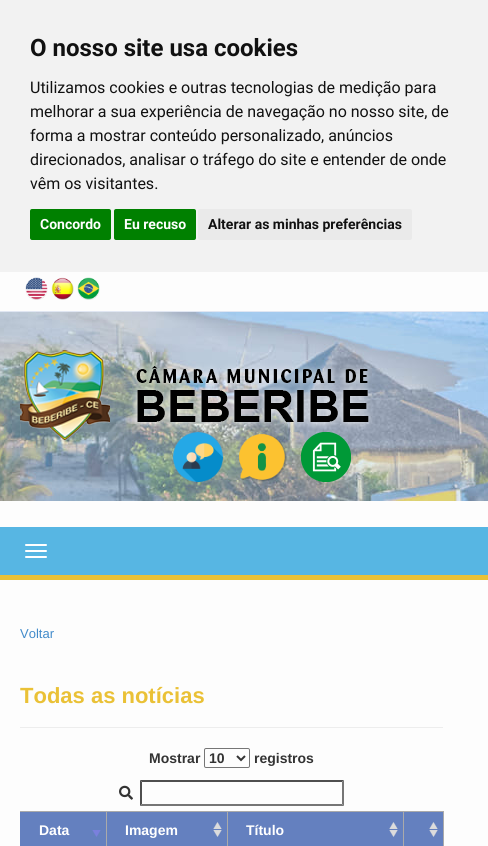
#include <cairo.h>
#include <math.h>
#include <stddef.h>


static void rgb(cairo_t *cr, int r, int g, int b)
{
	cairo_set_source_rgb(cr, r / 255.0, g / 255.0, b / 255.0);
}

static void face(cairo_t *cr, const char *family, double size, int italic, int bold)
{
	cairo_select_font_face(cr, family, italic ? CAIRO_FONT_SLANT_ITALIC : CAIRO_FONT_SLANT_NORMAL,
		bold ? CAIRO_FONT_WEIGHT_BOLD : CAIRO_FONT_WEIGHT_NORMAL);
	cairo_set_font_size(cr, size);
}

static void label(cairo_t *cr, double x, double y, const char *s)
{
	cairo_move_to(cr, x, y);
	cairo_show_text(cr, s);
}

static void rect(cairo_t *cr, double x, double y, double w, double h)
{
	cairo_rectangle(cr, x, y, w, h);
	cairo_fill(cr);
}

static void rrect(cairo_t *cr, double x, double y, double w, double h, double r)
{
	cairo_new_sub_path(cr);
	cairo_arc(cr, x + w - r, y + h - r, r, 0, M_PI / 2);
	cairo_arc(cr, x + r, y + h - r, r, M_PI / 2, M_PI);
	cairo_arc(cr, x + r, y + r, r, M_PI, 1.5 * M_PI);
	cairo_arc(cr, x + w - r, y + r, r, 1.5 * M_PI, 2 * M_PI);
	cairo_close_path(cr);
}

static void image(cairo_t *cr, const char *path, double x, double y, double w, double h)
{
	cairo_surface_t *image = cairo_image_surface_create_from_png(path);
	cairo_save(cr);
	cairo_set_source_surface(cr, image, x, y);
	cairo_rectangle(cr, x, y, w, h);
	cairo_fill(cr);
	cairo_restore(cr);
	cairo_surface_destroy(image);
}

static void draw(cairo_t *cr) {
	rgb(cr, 253, 253, 253);
	cairo_paint(cr);
	rgb(cr, 242, 242, 242);
	rect(cr, 0, 0, 488, 272);
	face(cr, "Roboto", 24, 0, 1);
	rgb(cr, 17, 17, 17);
	label(cr, 30, 56, "O nosso site usa cookies");
	face(cr, "Roboto", 16, 0, 0);
	label(cr, 30, 93, "Utilizamos cookies e outras tecnologias de medição para");
	label(cr, 30, 117, "melhorar a sua experiência de navegação no nosso site, de");
	label(cr, 30, 141, "forma a mostrar conteúdo personalizado, anúncios");
	label(cr, 30, 165, "direcionados, analisar o tráfego do site e entender de onde");
	label(cr, 30, 189, "vêm os visitantes.");
	rgb(cr, 0, 128, 0);
	rrect(cr, 30, 209, 81, 31, 2);
	cairo_fill(cr);
	face(cr, "Roboto", 14, 0, 1);
	rgb(cr, 255, 255, 255);
	label(cr, 40, 229, "Concordo");
	rgb(cr, 0, 128, 0);
	rrect(cr, 114, 209, 82, 31, 2);
	cairo_fill(cr);
	rgb(cr, 255, 255, 255);
	label(cr, 124, 229, "Eu recuso");
	rgb(cr, 234, 234, 234);
	rrect(cr, 198, 209, 214, 31, 2);
	cairo_fill(cr);
	rgb(cr, 17, 17, 17);
	label(cr, 208, 229, "Alterar as minhas preferências");
	rgb(cr, 224, 230, 242);
	rect(cr, 0, 311, 488, 1);
	image(cr, "image0.png", 25, 277, 23, 23);
	image(cr, "image1.png", 51, 277, 23, 23);
	image(cr, "image2.png", 77, 277, 23, 23);
	image(cr, "image3.png", 0, 312, 488, 189);
	image(cr, "image4.png", 20, 350, 353, 90);
	image(cr, "image5.png", 173, 432, 50, 50);
	image(cr, "image6.png", 239, 433, 48, 49);
	image(cr, "image7.png", 301, 432, 50, 50);
	rgb(cr, 87, 182, 227);
	rect(cr, 0, 527, 488, 48);
	rgb(cr, 234, 193, 54);
	rect(cr, 0, 575, 488, 5);
	rgb(cr, 255, 255, 255);
	rrect(cr, 25, 544, 22, 2, 1);
	cairo_fill(cr);
	rrect(cr, 25, 550, 22, 2, 1);
	cairo_fill(cr);
	rrect(cr, 25, 556, 22, 2, 1);
	cairo_fill(cr);
	face(cr, "Liberation Sans", 13, 0, 0);
	rgb(cr, 66, 139, 202);
	label(cr, 20, 638, "Voltar");
	rgb(cr, 237, 237, 237);
	rect(cr, 20, 727, 423, 1);
	face(cr, "Liberation Sans", 22, 0, 1);
	rgb(cr, 234, 193, 54);
	label(cr, 20, 703, "Todas as notícias");
	face(cr, "Liberation Sans", 14, 0, 1);
	rgb(cr, 51, 51, 51);
	label(cr, 149, 763, "Mostrar");
	rrect(cr, 204.5, 748.5, 45, 19, 1.5);
	rgb(cr, 118, 118, 118);
	cairo_set_line_width(cr, 1);
	cairo_stroke(cr);
	cairo_new_path(cr);
	cairo_move_to(cr, 237, 756);
	cairo_line_to(cr, 241, 760);
	cairo_line_to(cr, 245, 756);
	rgb(cr, 51, 51, 51);
	cairo_set_line_width(cr, 2);
	cairo_stroke(cr);
	label(cr, 209, 763, "10");
	label(cr, 254, 763, "registros");
	image(cr, "image8.png", 119, 785, 14, 15);
	rgb(cr, 79, 79, 79);
	cairo_new_path(cr);
	cairo_move_to(cr, 140, 780);
	cairo_line_to(cr, 344, 780);
	cairo_line_to(cr, 342, 782);
	cairo_line_to(cr, 142, 782);
	cairo_close_path(cr);
	cairo_fill(cr);
	rgb(cr, 118, 118, 118);
	cairo_new_path(cr);
	cairo_move_to(cr, 344, 780);
	cairo_line_to(cr, 344, 806);
	cairo_line_to(cr, 342, 804);
	cairo_line_to(cr, 342, 782);
	cairo_close_path(cr);
	cairo_fill(cr);
	cairo_new_path(cr);
	cairo_move_to(cr, 344, 806);
	cairo_line_to(cr, 140, 806);
	cairo_line_to(cr, 142, 804);
	cairo_line_to(cr, 342, 804);
	cairo_close_path(cr);
	cairo_fill(cr);
	rgb(cr, 79, 79, 79);
	cairo_new_path(cr);
	cairo_move_to(cr, 140, 806);
	cairo_line_to(cr, 140, 780);
	cairo_line_to(cr, 142, 782);
	cairo_line_to(cr, 142, 804);
	cairo_close_path(cr);
	cairo_fill(cr);
	rgb(cr, 100, 128, 191);
	rect(cr, 20, 811, 1, 35);
	rect(cr, 21, 812, 422, 34);
	image(cr, "image9.png", 92, 830, 9, 7);
	rgb(cr, 170, 170, 170);
	rect(cr, 403, 811, 41, 1);
	rect(cr, 403, 811, 1, 35);
	rect(cr, 227, 811, 177, 1);
	rect(cr, 227, 811, 1, 35);
	rect(cr, 106, 811, 122, 1);
	rect(cr, 106, 811, 1, 35);
	rect(cr, 20, 811, 87, 1);
	rgb(cr, 255, 255, 255);
	label(cr, 39, 835, "Data");
	image(cr, "image10.png", 213, 822, 9, 15);
	label(cr, 125, 835, "Imagem");
	image(cr, "image10.png", 389, 822, 9, 15);
	label(cr, 246, 835, "Título");
	image(cr, "image10.png", 429, 822, 9, 15);
	rgb(cr, 170, 170, 170);
	rect(cr, 443, 811, 1, 35);
}

int main(void) {
	cairo_surface_t *surface = cairo_image_surface_create(CAIRO_FORMAT_RGB24, 488, 846);
	cairo_t *cr = cairo_create(surface);
	cairo_font_options_t *options = cairo_font_options_create();
	cairo_font_options_set_hint_metrics(options, CAIRO_HINT_METRICS_OFF);
	cairo_font_options_set_hint_style(options, CAIRO_HINT_STYLE_NONE);
	cairo_set_font_options(cr, options);
	cairo_set_miter_limit(cr, 4);
	draw(cr);
	cairo_surface_write_to_png(surface, "render.png");
	cairo_font_options_destroy(options);
	cairo_destroy(cr);
	cairo_surface_destroy(surface);
	return 0;
}
